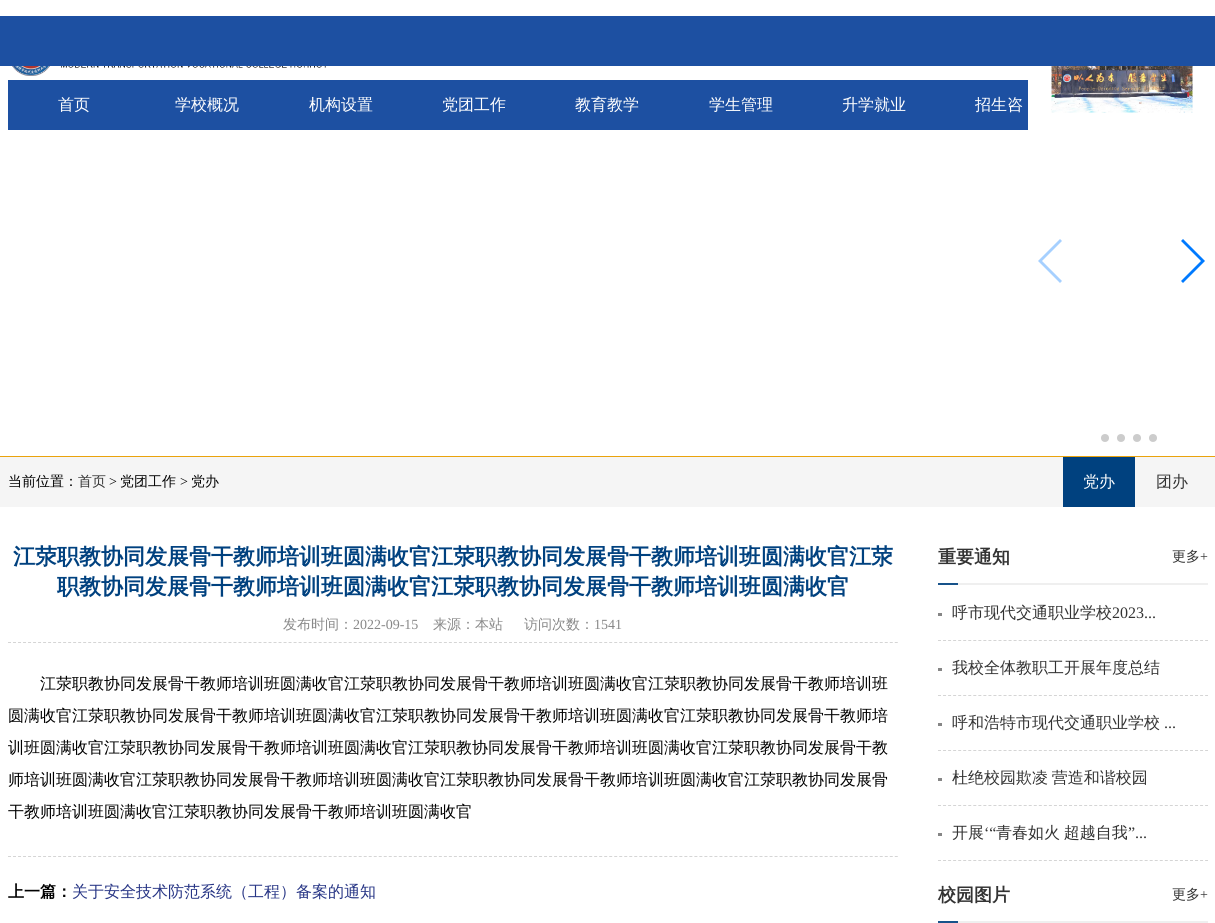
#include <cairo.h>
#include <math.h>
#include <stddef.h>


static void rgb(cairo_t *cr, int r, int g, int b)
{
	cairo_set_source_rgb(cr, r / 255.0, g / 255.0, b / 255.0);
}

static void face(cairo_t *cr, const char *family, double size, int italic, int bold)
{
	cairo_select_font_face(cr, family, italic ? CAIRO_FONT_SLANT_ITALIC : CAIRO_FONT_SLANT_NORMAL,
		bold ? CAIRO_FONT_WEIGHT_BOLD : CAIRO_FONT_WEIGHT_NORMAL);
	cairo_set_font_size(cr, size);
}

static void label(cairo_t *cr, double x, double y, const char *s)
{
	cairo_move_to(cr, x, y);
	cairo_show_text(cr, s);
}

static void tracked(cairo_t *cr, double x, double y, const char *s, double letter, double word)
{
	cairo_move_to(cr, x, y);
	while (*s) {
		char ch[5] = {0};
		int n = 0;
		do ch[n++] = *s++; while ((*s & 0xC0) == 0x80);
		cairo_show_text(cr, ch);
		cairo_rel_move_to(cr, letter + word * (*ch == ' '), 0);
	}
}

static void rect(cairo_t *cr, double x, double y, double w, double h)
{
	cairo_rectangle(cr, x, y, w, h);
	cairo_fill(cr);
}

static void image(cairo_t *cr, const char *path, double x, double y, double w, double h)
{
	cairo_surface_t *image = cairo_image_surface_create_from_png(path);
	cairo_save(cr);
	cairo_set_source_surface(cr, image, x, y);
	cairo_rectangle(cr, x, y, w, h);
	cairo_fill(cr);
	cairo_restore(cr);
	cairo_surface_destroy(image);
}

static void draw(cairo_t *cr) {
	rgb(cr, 255, 255, 255);
	cairo_paint(cr);
	image(cr, "image0.png", 12, 66, 314, 10);
	image(cr, "image1.png", 1051, 66, 142, 47);
	rgb(cr, 166, 208, 255);
	cairo_new_path(cr);
	cairo_move_to(cr, 1038, 261);
	cairo_line_to(cr, 1060, 239);
	cairo_line_to(cr, 1062, 241);
	cairo_line_to(cr, 1042, 261);
	cairo_line_to(cr, 1062, 281);
	cairo_line_to(cr, 1060, 283);
	cairo_close_path(cr);
	cairo_fill(cr);
	rgb(cr, 0, 122, 255);
	cairo_new_path(cr);
	cairo_move_to(cr, 1205, 261);
	cairo_line_to(cr, 1183, 283);
	cairo_line_to(cr, 1181, 281);
	cairo_line_to(cr, 1201, 261);
	cairo_line_to(cr, 1181, 241);
	cairo_line_to(cr, 1183, 239);
	cairo_close_path(cr);
	cairo_fill(cr);
	rgb(cr, 204, 204, 204);
	cairo_arc(cr, 1105, 438, 4, 0, 2 * M_PI);
	cairo_fill(cr);
	cairo_arc(cr, 1121, 438, 4, 0, 2 * M_PI);
	cairo_fill(cr);
	cairo_arc(cr, 1137, 438, 4, 0, 2 * M_PI);
	cairo_fill(cr);
	cairo_arc(cr, 1153, 438, 4, 0, 2 * M_PI);
	cairo_fill(cr);
	rgb(cr, 29, 80, 162);
	rect(cr, 0, 16, 1215, 50);
	rect(cr, 8, 80, 1020, 50);
	face(cr, "WenQuanYi Zen Hei Medium", 16, 0, 0);
	rgb(cr, 255, 255, 255);
	label(cr, 58, 110, "首页");
	label(cr, 175, 110, "学校概况");
	label(cr, 309, 110, "机构设置");
	label(cr, 442, 110, "党团工作");
	label(cr, 575, 110, "教育教学");
	label(cr, 709, 110, "学生管理");
	label(cr, 842, 110, "升学就业");
	label(cr, 975, 110, "招生咨");
	rgb(cr, 245, 245, 245);
	rect(cr, 0, 457, 1215, 50);
	rgb(cr, 234, 163, 12);
	rect(cr, 0, 456, 1215, 1);
	face(cr, "WenQuanYi Zen Hei Medium", 14, 0, 0);
	rgb(cr, 0, 0, 0);
	label(cr, 8, 486, "当前位置：");
	rgb(cr, 51, 51, 51);
	label(cr, 78, 486, "首页");
	face(cr, "Liberation Serif", 14, 0, 0);
	rgb(cr, 0, 0, 0);
	label(cr, 109, 486, ">");
	face(cr, "WenQuanYi Zen Hei Medium", 14, 0, 0);
	label(cr, 120, 486, "党团工作");
	face(cr, "Liberation Serif", 14, 0, 0);
	label(cr, 180, 486, ">");
	face(cr, "WenQuanYi Zen Hei Medium", 14, 0, 0);
	label(cr, 191, 486, "党办");
	rgb(cr, 0, 65, 127);
	rect(cr, 1063, 457, 72, 50);
	face(cr, "WenQuanYi Zen Hei Medium", 16, 0, 0);
	rgb(cr, 255, 255, 255);
	label(cr, 1083, 487, "党办");
	rgb(cr, 51, 51, 51);
	label(cr, 1156, 487, "团办");
	cairo_new_path(cr);
	cairo_move_to(cr, 8, 642.5);
	cairo_line_to(cr, 898, 642.5);
	rgb(cr, 213, 213, 213);
	cairo_set_line_width(cr, 1);
	cairo_set_dash(cr, (double[]){3, 2.01}, 2, 0);
	cairo_stroke(cr);
	face(cr, "WenQuanYi Zen Hei", 22, 0, 1);
	rgb(cr, 0, 65, 127);
	label(cr, 13, 564, "江荥职教协同发展骨干教师培训班圆满收官江荥职教协同发展骨干教师培训班圆满收官江荥");
	label(cr, 57, 594, "职教协同发展骨干教师培训班圆满收官江荥职教协同发展骨干教师培训班圆满收官");
	face(cr, "WenQuanYi Zen Hei Medium", 14, 0, 0);
	rgb(cr, 136, 136, 136);
	label(cr, 283, 629, "发布时间：");
	face(cr, "Liberation Serif", 14, 0, 0);
	label(cr, 353, 629, "2022-09-15");
	face(cr, "WenQuanYi Zen Hei Medium", 14, 0, 0);
	label(cr, 433, 629, "来源：本站");
	label(cr, 524, 629, "访问次数：");
	face(cr, "Liberation Serif", 14, 0, 0);
	label(cr, 594, 629, "1541");
	face(cr, "WenQuanYi Zen Hei Medium", 16, 0, 0);
	rgb(cr, 0, 0, 0);
	label(cr, 40, 689, "江荥职教协同发展骨干教师培训班圆满收官江荥职教协同发展骨干教师培训班圆满收官江荥职教协同发展骨干教师培训班");
	label(cr, 8, 721, "圆满收官江荥职教协同发展骨干教师培训班圆满收官江荥职教协同发展骨干教师培训班圆满收官江荥职教协同发展骨干教师培");
	label(cr, 8, 753, "训班圆满收官江荥职教协同发展骨干教师培训班圆满收官江荥职教协同发展骨干教师培训班圆满收官江荥职教协同发展骨干教");
	label(cr, 8, 785, "师培训班圆满收官江荥职教协同发展骨干教师培训班圆满收官江荥职教协同发展骨干教师培训班圆满收官江荥职教协同发展骨");
	label(cr, 8, 817, "干教师培训班圆满收官江荥职教协同发展骨干教师培训班圆满收官");
	cairo_new_path(cr);
	cairo_move_to(cr, 8, 856.5);
	cairo_line_to(cr, 898, 856.5);
	rgb(cr, 213, 213, 213);
	cairo_stroke(cr);
	face(cr, "WenQuanYi Zen Hei", 16, 0, 1);
	rgb(cr, 0, 0, 0);
	label(cr, 8, 897, "上一篇：");
	face(cr, "WenQuanYi Zen Hei Medium", 16, 0, 0);
	rgb(cr, 39, 53, 133);
	label(cr, 72, 897, "关于安全技术防范系统（工程）备案的通知");
	image(cr, "image2.png", 938, 583, 270, 2);
	face(cr, "WenQuanYi Zen Hei", 18, 0, 1);
	rgb(cr, 51, 51, 51);
	label(cr, 938, 563, "重要通知");
	face(cr, "WenQuanYi Zen Hei Medium", 14, 0, 0);
	label(cr, 1172, 561, "更多");
	face(cr, "Liberation Serif", 14, 0, 0);
	label(cr, 1200, 561, "+");
	rgb(cr, 134, 134, 134);
	rect(cr, 938, 613, 4, 3);
	cairo_new_path(cr);
	cairo_move_to(cr, 938, 640.5);
	cairo_line_to(cr, 1208, 640.5);
	rgb(cr, 213, 213, 213);
	cairo_set_dash(cr, (double[]){3, 2.04}, 2, 0);
	cairo_stroke(cr);
	face(cr, "WenQuanYi Zen Hei Medium", 16, 0, 0);
	rgb(cr, 51, 51, 51);
	label(cr, 952, 618, "呼市现代交通职业学校");
	face(cr, "Liberation Serif", 16, 0, 0);
	label(cr, 1112, 618, "2023...");
	rgb(cr, 134, 134, 134);
	rect(cr, 938, 668, 4, 3);
	cairo_new_path(cr);
	cairo_move_to(cr, 938, 695.5);
	cairo_line_to(cr, 1208, 695.5);
	rgb(cr, 213, 213, 213);
	cairo_stroke(cr);
	face(cr, "WenQuanYi Zen Hei Medium", 16, 0, 0);
	rgb(cr, 51, 51, 51);
	label(cr, 952, 673, "我校全体教职工开展年度总结");
	rgb(cr, 134, 134, 134);
	rect(cr, 938, 723, 4, 3);
	cairo_new_path(cr);
	cairo_move_to(cr, 938, 750.5);
	cairo_line_to(cr, 1208, 750.5);
	rgb(cr, 213, 213, 213);
	cairo_stroke(cr);
	rgb(cr, 51, 51, 51);
	label(cr, 952, 728, "呼和浩特市现代交通职业学校");
	face(cr, "Liberation Serif", 16, 0, 0);
	label(cr, 1164, 728, "...");
	rgb(cr, 134, 134, 134);
	rect(cr, 938, 778, 4, 3);
	cairo_new_path(cr);
	cairo_move_to(cr, 938, 805.5);
	cairo_line_to(cr, 1208, 805.5);
	rgb(cr, 213, 213, 213);
	cairo_stroke(cr);
	face(cr, "WenQuanYi Zen Hei Medium", 16, 0, 0);
	rgb(cr, 51, 51, 51);
	tracked(cr, 952, 783, "杜绝校园欺凌 营造和谐校园", 0, -1);
	rgb(cr, 134, 134, 134);
	rect(cr, 938, 833, 4, 3);
	cairo_new_path(cr);
	cairo_move_to(cr, 938, 860.5);
	cairo_line_to(cr, 1208, 860.5);
	rgb(cr, 213, 213, 213);
	cairo_stroke(cr);
	rgb(cr, 51, 51, 51);
	label(cr, 952, 838, "开展");
	face(cr, "Liberation Serif", 16, 0, 0);
	label(cr, 984, 838, "‘“");
	face(cr, "WenQuanYi Zen Hei Medium", 16, 0, 0);
	tracked(cr, 996, 838, "青春如火 超越自我", 0, -1);
	face(cr, "Liberation Serif", 16, 0, 0);
	label(cr, 1128, 838, "”...");
	image(cr, "image2.png", 938, 921, 270, 2);
	face(cr, "WenQuanYi Zen Hei", 18, 0, 1);
	label(cr, 938, 901, "校园图片");
	face(cr, "WenQuanYi Zen Hei Medium", 14, 0, 0);
	label(cr, 1172, 899, "更多");
	face(cr, "Liberation Serif", 14, 0, 0);
	label(cr, 1200, 899, "+");
}

int main(void) {
	cairo_surface_t *surface = cairo_image_surface_create(CAIRO_FORMAT_RGB24, 1215, 923);
	cairo_t *cr = cairo_create(surface);
	cairo_font_options_t *options = cairo_font_options_create();
	cairo_font_options_set_hint_metrics(options, CAIRO_HINT_METRICS_OFF);
	cairo_font_options_set_hint_style(options, CAIRO_HINT_STYLE_NONE);
	cairo_set_font_options(cr, options);
	cairo_set_miter_limit(cr, 4);
	draw(cr);
	cairo_surface_write_to_png(surface, "render.png");
	cairo_font_options_destroy(options);
	cairo_destroy(cr);
	cairo_surface_destroy(surface);
	return 0;
}
